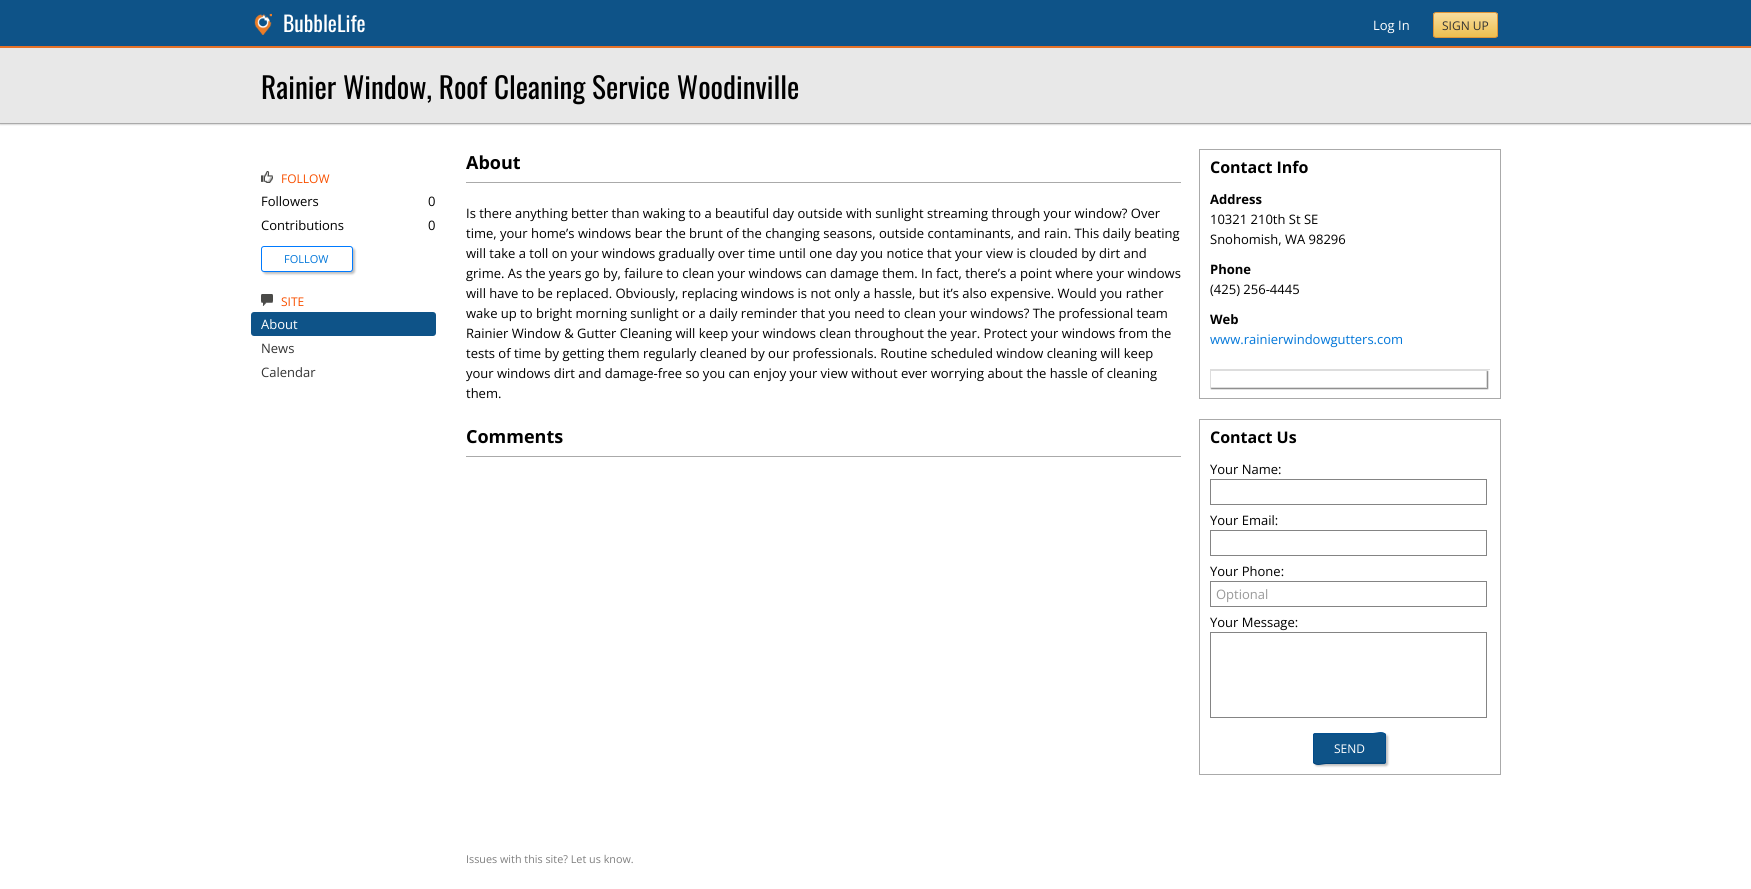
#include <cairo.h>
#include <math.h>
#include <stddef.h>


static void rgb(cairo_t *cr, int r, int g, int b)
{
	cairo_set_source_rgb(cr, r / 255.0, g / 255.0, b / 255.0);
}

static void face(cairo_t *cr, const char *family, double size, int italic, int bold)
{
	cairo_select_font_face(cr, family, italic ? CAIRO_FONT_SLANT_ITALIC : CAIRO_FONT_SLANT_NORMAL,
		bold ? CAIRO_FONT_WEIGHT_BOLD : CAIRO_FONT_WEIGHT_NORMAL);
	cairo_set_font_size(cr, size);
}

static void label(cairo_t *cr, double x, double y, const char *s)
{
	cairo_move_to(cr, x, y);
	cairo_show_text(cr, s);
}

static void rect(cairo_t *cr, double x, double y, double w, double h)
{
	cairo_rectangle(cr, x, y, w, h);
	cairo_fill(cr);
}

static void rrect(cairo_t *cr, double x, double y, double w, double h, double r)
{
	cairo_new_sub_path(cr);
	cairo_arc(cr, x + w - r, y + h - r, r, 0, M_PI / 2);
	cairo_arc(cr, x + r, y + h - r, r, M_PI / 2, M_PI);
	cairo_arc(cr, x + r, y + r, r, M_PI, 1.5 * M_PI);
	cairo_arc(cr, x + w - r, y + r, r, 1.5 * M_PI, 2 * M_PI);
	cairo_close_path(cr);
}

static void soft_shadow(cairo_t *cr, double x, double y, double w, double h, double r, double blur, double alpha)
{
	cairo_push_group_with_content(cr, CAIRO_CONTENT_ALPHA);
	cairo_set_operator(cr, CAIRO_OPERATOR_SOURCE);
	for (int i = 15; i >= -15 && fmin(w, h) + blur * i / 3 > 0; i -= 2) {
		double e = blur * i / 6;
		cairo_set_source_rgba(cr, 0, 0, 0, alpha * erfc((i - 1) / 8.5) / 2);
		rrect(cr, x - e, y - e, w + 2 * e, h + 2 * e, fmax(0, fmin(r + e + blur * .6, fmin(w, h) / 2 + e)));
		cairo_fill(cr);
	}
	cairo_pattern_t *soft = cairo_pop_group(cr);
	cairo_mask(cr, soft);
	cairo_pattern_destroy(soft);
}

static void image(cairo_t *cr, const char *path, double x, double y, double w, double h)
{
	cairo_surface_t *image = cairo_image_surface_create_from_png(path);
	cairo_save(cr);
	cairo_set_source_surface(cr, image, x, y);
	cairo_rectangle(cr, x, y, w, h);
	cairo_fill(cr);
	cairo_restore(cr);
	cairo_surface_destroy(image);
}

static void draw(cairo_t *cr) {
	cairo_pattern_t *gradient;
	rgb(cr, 255, 255, 255);
	cairo_paint(cr);
	rgb(cr, 14, 83, 136);
	rect(cr, 0, 0, 1751, 46);
	rgb(cr, 230, 113, 39);
	rect(cr, 0, 46, 1751, 2);
	image(cr, "image0.png", 254, 13, 18, 22);
	face(cr, "Oswald", 21.5, 0, 0);
	rgb(cr, 255, 255, 255);
	label(cr, 283, 32, "BubbleLife");
	face(cr, "Open Sans", 13, 0, 0);
	label(cr, 1373, 30, "Log In");
	cairo_save(cr);
	rrect(cr, 1433, 12, 65, 26, 3);
	cairo_clip(cr);
	gradient = cairo_pattern_create_linear(1466, 13, 1466, 37);
	cairo_pattern_add_color_stop_rgba(gradient, 0, 0.969, 0.867, 0.62, 1);
	cairo_pattern_add_color_stop_rgba(gradient, 1, 0.929, 0.749, 0.31, 1);
	cairo_set_source(cr, gradient);
	cairo_pattern_destroy(gradient);
	rect(cr, 1433, 13, 65, 24);
	cairo_restore(cr);
	rrect(cr, 1433.5, 12.5, 64, 25, 2.5);
	rgb(cr, 223, 149, 56);
	cairo_set_line_width(cr, 1);
	cairo_stroke(cr);
	face(cr, "Open Sans", 12, 0, 0);
	rgb(cr, 51, 51, 51);
	label(cr, 1442, 30, "SIGN UP");
	rgb(cr, 221, 221, 221);
	soft_shadow(cr, 0, 49, 1751, 76, 0, 0.5, 1);
	rgb(cr, 232, 232, 232);
	rect(cr, 0, 48, 1751, 75);
	rgb(cr, 170, 170, 170);
	rect(cr, 0, 123, 1751, 1);
	face(cr, "Oswald", 29.3, 0, 0);
	rgb(cr, 0, 0, 0);
	label(cr, 261, 99, "Rainier Window, Roof Cleaning Service Woodinville");
	image(cr, "image1.png", 261, 171, 12, 12);
	face(cr, "Open Sans", 12, 0, 0);
	rgb(cr, 248, 80, 0);
	label(cr, 281, 183, "FOLLOW");
	face(cr, "Open Sans", 13, 0, 0);
	rgb(cr, 0, 0, 0);
	label(cr, 261, 206, "Followers");
	label(cr, 428, 206, "0");
	label(cr, 261, 230, "Contributions");
	label(cr, 428, 230, "0");
	rgb(cr, 192, 192, 192);
	soft_shadow(cr, 263, 248, 92, 26, 3, 1, 1);
	rgb(cr, 255, 255, 255);
	rrect(cr, 261.5, 246.5, 91, 25, 2.5);
	cairo_fill_preserve(cr);
	rgb(cr, 0, 122, 255);
	cairo_stroke(cr);
	face(cr, "Open Sans", 11, 0, 0);
	rgb(cr, 1, 118, 217);
	label(cr, 284, 263, "FOLLOW");
	image(cr, "image2.png", 261, 294, 12, 12);
	face(cr, "Open Sans", 12, 0, 0);
	rgb(cr, 248, 80, 0);
	label(cr, 281, 306, "SITE");
	rgb(cr, 14, 83, 136);
	rrect(cr, 251, 312, 185, 24, 3);
	cairo_fill(cr);
	face(cr, "Open Sans", 13, 0, 0);
	rgb(cr, 255, 255, 255);
	label(cr, 261, 329, "About");
	rgb(cr, 51, 51, 51);
	label(cr, 261, 353, "News");
	label(cr, 261, 377, "Calendar");
	rgb(cr, 170, 170, 170);
	rect(cr, 466, 182, 715, 1);
	face(cr, "Open Sans", 18, 0, 1);
	rgb(cr, 0, 0, 0);
	label(cr, 466, 169, "About");
	face(cr, "Open Sans", 13, 0, 0);
	label(cr, 466, 218, "Is there anything better than waking to a beautiful day outside with sunlight streaming through your window? Over");
	label(cr, 466, 238, "time, your home’s windows bear the brunt of the changing seasons, outside contaminants, and rain. This daily beating");
	label(cr, 466, 258, "will take a toll on your windows gradually over time until one day you notice that your view is clouded by dirt and");
	label(cr, 466, 278, "grime. As the years go by, failure to clean your windows can damage them. In fact, there’s a point where your windows");
	label(cr, 466, 298, "will have to be replaced. Obviously, replacing windows is not only a hassle, but it’s also expensive. Would you rather");
	label(cr, 466, 318, "wake up to bright morning sunlight or a daily reminder that you need to clean your windows? The professional team");
	label(cr, 466, 338, "Rainier Window & Gutter Cleaning will keep your windows clean throughout the year. Protect your windows from the");
	label(cr, 466, 358, "tests of time by getting them regularly cleaned by our professionals. Routine scheduled window cleaning will keep");
	label(cr, 466, 378, "your windows dirt and damage-free so you can enjoy your view without ever worrying about the hassle of cleaning");
	label(cr, 466, 398, "them.");
	rgb(cr, 170, 170, 170);
	rect(cr, 466, 456, 715, 1);
	face(cr, "Open Sans", 18, 0, 1);
	rgb(cr, 0, 0, 0);
	label(cr, 466, 443, "Comments");
	face(cr, "Open Sans", 10.8, 0, 0);
	rgb(cr, 128, 128, 128);
	label(cr, 466, 863, "Issues with this site? Let us know.");
	cairo_rectangle(cr, 1199.5, 149.5, 301, 249);
	rgb(cr, 170, 170, 170);
	cairo_stroke(cr);
	face(cr, "Open Sans", 16, 0, 1);
	rgb(cr, 0, 0, 0);
	label(cr, 1210, 173, "Contact Info");
	face(cr, "Open Sans", 13, 0, 1);
	label(cr, 1210, 204, "Address");
	face(cr, "Open Sans", 13, 0, 0);
	label(cr, 1210, 224, "10321 210th St SE");
	label(cr, 1210, 244, "Snohomish, WA 98296");
	face(cr, "Open Sans", 13, 0, 1);
	label(cr, 1210, 274, "Phone");
	face(cr, "Open Sans", 13, 0, 0);
	label(cr, 1210, 294, "(425) 256-4445");
	face(cr, "Open Sans", 13, 0, 1);
	label(cr, 1210, 324, "Web");
	face(cr, "Open Sans", 13, 0, 0);
	rgb(cr, 1, 118, 217);
	label(cr, 1210, 344, "www.rainierwindowgutters.com");
	rgb(cr, 221, 221, 221);
	rect(cr, 1210, 369, 280, 1);
	cairo_save(cr);
	cairo_set_fill_rule(cr, CAIRO_FILL_RULE_EVEN_ODD);
	cairo_new_path(cr);
	cairo_move_to(cr, 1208, 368);
	cairo_line_to(cr, 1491, 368);
	cairo_line_to(cr, 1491, 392);
	cairo_line_to(cr, 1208, 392);
	cairo_close_path(cr);
	cairo_move_to(cr, 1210, 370);
	cairo_line_to(cr, 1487, 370);
	cairo_line_to(cr, 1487, 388);
	cairo_line_to(cr, 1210, 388);
	cairo_close_path(cr);
	cairo_clip(cr);
	rgb(cr, 128, 128, 128);
	soft_shadow(cr, 1211, 371, 277, 18, 0, 0.5, 1);
	cairo_restore(cr);
	cairo_rectangle(cr, 1210.5, 370.5, 276, 17);
	cairo_stroke(cr);
	cairo_rectangle(cr, 1199.5, 419.5, 301, 355);
	rgb(cr, 170, 170, 170);
	cairo_stroke(cr);
	face(cr, "Open Sans", 16, 0, 1);
	rgb(cr, 0, 0, 0);
	label(cr, 1210, 443, "Contact Us");
	face(cr, "Open Sans", 13, 0, 0);
	label(cr, 1210, 474, "Your Name:");
	cairo_rectangle(cr, 1210.5, 479.5, 276, 25);
	rgb(cr, 132, 132, 132);
	cairo_stroke(cr);
	rgb(cr, 0, 0, 0);
	label(cr, 1210, 525, "Your Email:");
	cairo_rectangle(cr, 1210.5, 530.5, 276, 25);
	rgb(cr, 132, 132, 132);
	cairo_stroke(cr);
	rgb(cr, 0, 0, 0);
	label(cr, 1210, 576, "Your Phone:");
	cairo_rectangle(cr, 1210.5, 581.5, 276, 25);
	rgb(cr, 132, 132, 132);
	cairo_stroke(cr);
	rgb(cr, 153, 153, 153);
	label(cr, 1216, 599, "Optional");
	rgb(cr, 0, 0, 0);
	label(cr, 1210, 627, "Your Message:");
	cairo_rectangle(cr, 1210.5, 632.5, 276, 85);
	rgb(cr, 132, 132, 132);
	cairo_stroke(cr);
	rgb(cr, 192, 192, 192);
	soft_shadow(cr, 1315, 735, 73, 31, 2, 1, 1);
	rgb(cr, 14, 83, 136);
	rrect(cr, 1313, 733, 73, 31, 2);
	cairo_fill(cr);
	cairo_new_path(cr);
	cairo_move_to(cr, 1314, 734);
	cairo_line_to(cr, 1372.5, 733.5);
	cairo_curve_to(cr, 1376.5, 733.5, 1382, 731, 1385, 734);
	rgb(cr, 0, 78, 145);
	cairo_stroke(cr);
	cairo_new_path(cr);
	cairo_move_to(cr, 1385, 734);
	cairo_line_to(cr, 1385.5, 735);
	cairo_line_to(cr, 1385.5, 762);
	cairo_line_to(cr, 1385, 763);
	rgb(cr, 1, 75, 139);
	cairo_stroke(cr);
	cairo_new_path(cr);
	cairo_move_to(cr, 1385, 763);
	cairo_line_to(cr, 1326.5, 763.5);
	cairo_curve_to(cr, 1322.5, 763.5, 1317, 766, 1314, 763);
	rgb(cr, 0, 65, 120);
	cairo_stroke(cr);
	cairo_new_path(cr);
	cairo_move_to(cr, 1314, 763);
	cairo_line_to(cr, 1313.5, 762);
	cairo_line_to(cr, 1313.5, 735);
	cairo_line_to(cr, 1314, 734);
	rgb(cr, 1, 75, 139);
	cairo_stroke(cr);
	face(cr, "Open Sans", 12, 0, 0);
	rgb(cr, 255, 255, 255);
	label(cr, 1334, 753, "SEND");
}

int main(void) {
	cairo_surface_t *surface = cairo_image_surface_create(CAIRO_FORMAT_RGB24, 1751, 889);
	cairo_t *cr = cairo_create(surface);
	cairo_font_options_t *options = cairo_font_options_create();
	cairo_font_options_set_hint_metrics(options, CAIRO_HINT_METRICS_OFF);
	cairo_font_options_set_hint_style(options, CAIRO_HINT_STYLE_NONE);
	cairo_set_font_options(cr, options);
	cairo_set_miter_limit(cr, 4);
	draw(cr);
	cairo_surface_write_to_png(surface, "render.png");
	cairo_font_options_destroy(options);
	cairo_destroy(cr);
	cairo_surface_destroy(surface);
	return 0;
}
